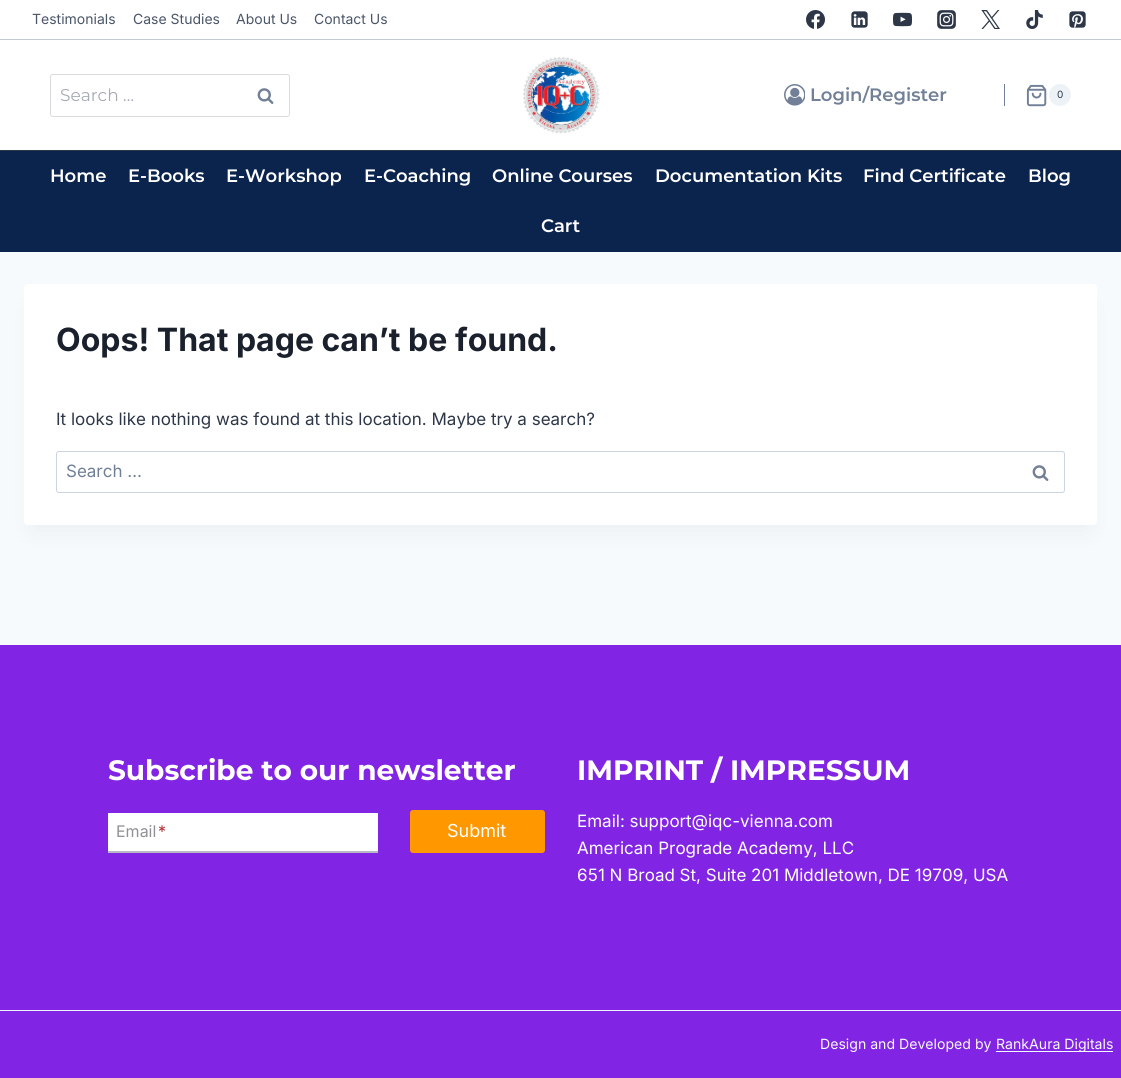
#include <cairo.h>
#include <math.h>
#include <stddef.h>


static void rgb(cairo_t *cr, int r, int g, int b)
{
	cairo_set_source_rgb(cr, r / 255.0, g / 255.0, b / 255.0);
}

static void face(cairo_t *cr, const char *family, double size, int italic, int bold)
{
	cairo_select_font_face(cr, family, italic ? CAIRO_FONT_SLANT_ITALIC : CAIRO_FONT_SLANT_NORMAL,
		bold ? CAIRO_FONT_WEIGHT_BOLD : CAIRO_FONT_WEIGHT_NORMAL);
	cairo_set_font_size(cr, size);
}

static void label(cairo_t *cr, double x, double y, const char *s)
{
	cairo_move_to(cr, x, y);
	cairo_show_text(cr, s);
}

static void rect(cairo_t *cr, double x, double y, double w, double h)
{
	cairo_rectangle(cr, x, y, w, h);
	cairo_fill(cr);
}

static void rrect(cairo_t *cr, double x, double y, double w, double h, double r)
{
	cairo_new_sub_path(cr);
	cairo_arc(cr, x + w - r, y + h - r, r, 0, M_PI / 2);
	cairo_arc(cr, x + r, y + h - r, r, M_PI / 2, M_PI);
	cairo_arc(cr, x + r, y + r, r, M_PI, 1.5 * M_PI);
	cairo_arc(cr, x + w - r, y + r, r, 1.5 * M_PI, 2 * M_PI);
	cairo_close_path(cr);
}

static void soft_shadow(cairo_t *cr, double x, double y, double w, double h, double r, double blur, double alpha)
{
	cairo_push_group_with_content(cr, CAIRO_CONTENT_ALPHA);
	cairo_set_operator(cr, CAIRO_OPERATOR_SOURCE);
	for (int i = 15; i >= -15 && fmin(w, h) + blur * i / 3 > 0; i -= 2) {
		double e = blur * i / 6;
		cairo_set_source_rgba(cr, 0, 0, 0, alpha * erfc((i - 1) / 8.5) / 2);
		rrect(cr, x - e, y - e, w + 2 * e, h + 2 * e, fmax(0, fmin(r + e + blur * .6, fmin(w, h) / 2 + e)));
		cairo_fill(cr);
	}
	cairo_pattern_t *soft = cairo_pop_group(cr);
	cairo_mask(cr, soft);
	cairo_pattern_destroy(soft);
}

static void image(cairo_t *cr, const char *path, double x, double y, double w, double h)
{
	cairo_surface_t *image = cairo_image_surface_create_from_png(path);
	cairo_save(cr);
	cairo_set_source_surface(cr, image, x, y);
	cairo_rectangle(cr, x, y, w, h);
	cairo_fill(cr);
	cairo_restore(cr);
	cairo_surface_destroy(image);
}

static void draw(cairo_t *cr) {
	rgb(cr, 247, 250, 252);
	cairo_paint(cr);
	rgb(cr, 255, 255, 255);
	rect(cr, 0, 0, 1121, 150);
	rgb(cr, 194, 200, 210);
	rect(cr, 0, 39, 1121, 1);
	face(cr, "Inter", 14, 0, 0);
	rgb(cr, 74, 85, 104);
	label(cr, 32, 24, "Testimonials");
	label(cr, 133, 24, "Case Studies");
	label(cr, 236, 24, "About Us");
	label(cr, 314, 24, "Contact Us");
	image(cr, "image0.png", 806, 10, 19, 19);
	image(cr, "image1.png", 851, 11, 17, 17);
	image(cr, "image2.png", 893, 12, 19, 15);
	image(cr, "image3.png", 937, 10, 19, 19);
	image(cr, "image4.png", 981, 10, 19, 19);
	image(cr, "image5.png", 1026, 10, 17, 19);
	image(cr, "image6.png", 1069, 11, 17, 17);
	rgb(cr, 45, 55, 72);
	rect(cr, 0, 150, 1121, 1);
	rrect(cr, 50.5, 74.5, 239, 42, 2.5);
	rgb(cr, 217, 219, 224);
	cairo_set_line_width(cr, 1);
	cairo_stroke(cr);
	face(cr, "Montserrat", 17, 0, 0);
	rgb(cr, 165, 170, 180);
	label(cr, 60, 101, "Search …");
	image(cr, "image7.png", 257, 88, 17, 16);
	image(cr, "image8.png", 523, 57, 77, 77);
	image(cr, "image9.png", 784, 84, 21, 22);
	face(cr, "Montserrat SemiBold", 18, 0, 0);
	rgb(cr, 113, 128, 150);
	label(cr, 810, 101, "Login/Register");
	rect(cr, 1004, 84, 1, 22);
	image(cr, "image10.png", 1026, 84, 21, 23);
	rgb(cr, 237, 242, 247);
	cairo_arc(cr, 1060, 95, 11, 0, 2 * M_PI);
	cairo_fill(cr);
	face(cr, "Inter", 10, 0, 0);
	rgb(cr, 45, 55, 72);
	label(cr, 1057, 98, "0");
	rgb(cr, 11, 36, 78);
	rect(cr, 0, 151, 1121, 101);
	face(cr, "Montserrat SemiBold", 18, 0, 0);
	rgb(cr, 255, 255, 255);
	label(cr, 50, 182, "Home");
	label(cr, 128, 182, "E-Books");
	label(cr, 226, 182, "E-Workshop");
	label(cr, 364, 182, "E-Coaching");
	label(cr, 492, 182, "Online Courses");
	label(cr, 655, 182, "Documentation Kits");
	label(cr, 863, 182, "Find Certificate");
	label(cr, 1028, 182, "Blog");
	label(cr, 541, 232, "Cart");
	rgb(cr, 0, 0, 0);
	soft_shadow(cr, 34, 309, 1053, 221, 0, 12.5, 0.05);
	rgb(cr, 255, 255, 255);
	rrect(cr, 24, 284, 1073, 241, 4);
	cairo_fill(cr);
	face(cr, "Inter", 32, 0, 1);
	rgb(cr, 26, 32, 44);
	label(cr, 56, 351, "Oops! That page can’t be found.");
	face(cr, "Inter", 17, 0, 0);
	rgb(cr, 45, 55, 72);
	label(cr, 56, 425, "It looks like nothing was found at this location. Maybe try a search?");
	rrect(cr, 56.5, 451.5, 1008, 41, 2.5);
	rgb(cr, 203, 213, 224);
	cairo_stroke(cr);
	rgb(cr, 113, 128, 150);
	label(cr, 66, 477, "Search …");
	image(cr, "image7.png", 1032, 465, 17, 16);
	rgb(cr, 130, 36, 227);
	rect(cr, 0, 645, 1121, 365);
	face(cr, "Montserrat", 28, 0, 1);
	rgb(cr, 255, 255, 255);
	label(cr, 108, 780, "Subscribe to our newsletter");
	rect(cr, 108, 813, 270, 38);
	rgb(cr, 185, 185, 197);
	rect(cr, 108, 851, 270, 2);
	face(cr, "Inter", 16, 0, 0);
	rgb(cr, 144, 144, 151);
	label(cr, 116, 837, "Email");
	rgb(cr, 179, 45, 46);
	label(cr, 158, 837, "*");
	rgb(cr, 255, 152, 0);
	rrect(cr, 410, 810, 135, 43, 3);
	cairo_fill(cr);
	face(cr, "Inter", 18, 0, 0);
	rgb(cr, 255, 255, 255);
	label(cr, 447, 837, "Submit");
	face(cr, "Montserrat", 28, 0, 1);
	label(cr, 577, 780, "IMPRINT / IMPRESSUM");
	face(cr, "Inter", 17, 0, 0);
	label(cr, 577, 827, "Email: support@iqc-vienna.com");
	label(cr, 577, 854, "American Prograde Academy, LLC");
	label(cr, 577, 881, "651 N Broad St, Suite 201 Middletown, DE 19709, USA");
	rgb(cr, 130, 36, 227);
	rect(cr, 0, 1011, 1121, 67);
	rgb(cr, 237, 242, 247);
	rect(cr, 0, 1010, 1121, 1);
	face(cr, "Inter", 14.1, 0, 0);
	rgb(cr, 247, 250, 252);
	label(cr, 820, 1049, "Design and Developed by");
	rect(cr, 996, 1051, 117, 1);
	label(cr, 996, 1049, "RankAura Digitals");
}

int main(void) {
	cairo_surface_t *surface = cairo_image_surface_create(CAIRO_FORMAT_RGB24, 1121, 1078);
	cairo_t *cr = cairo_create(surface);
	cairo_font_options_t *options = cairo_font_options_create();
	cairo_font_options_set_hint_metrics(options, CAIRO_HINT_METRICS_OFF);
	cairo_font_options_set_hint_style(options, CAIRO_HINT_STYLE_NONE);
	cairo_set_font_options(cr, options);
	cairo_set_miter_limit(cr, 4);
	draw(cr);
	cairo_surface_write_to_png(surface, "render.png");
	cairo_font_options_destroy(options);
	cairo_destroy(cr);
	cairo_surface_destroy(surface);
	return 0;
}
